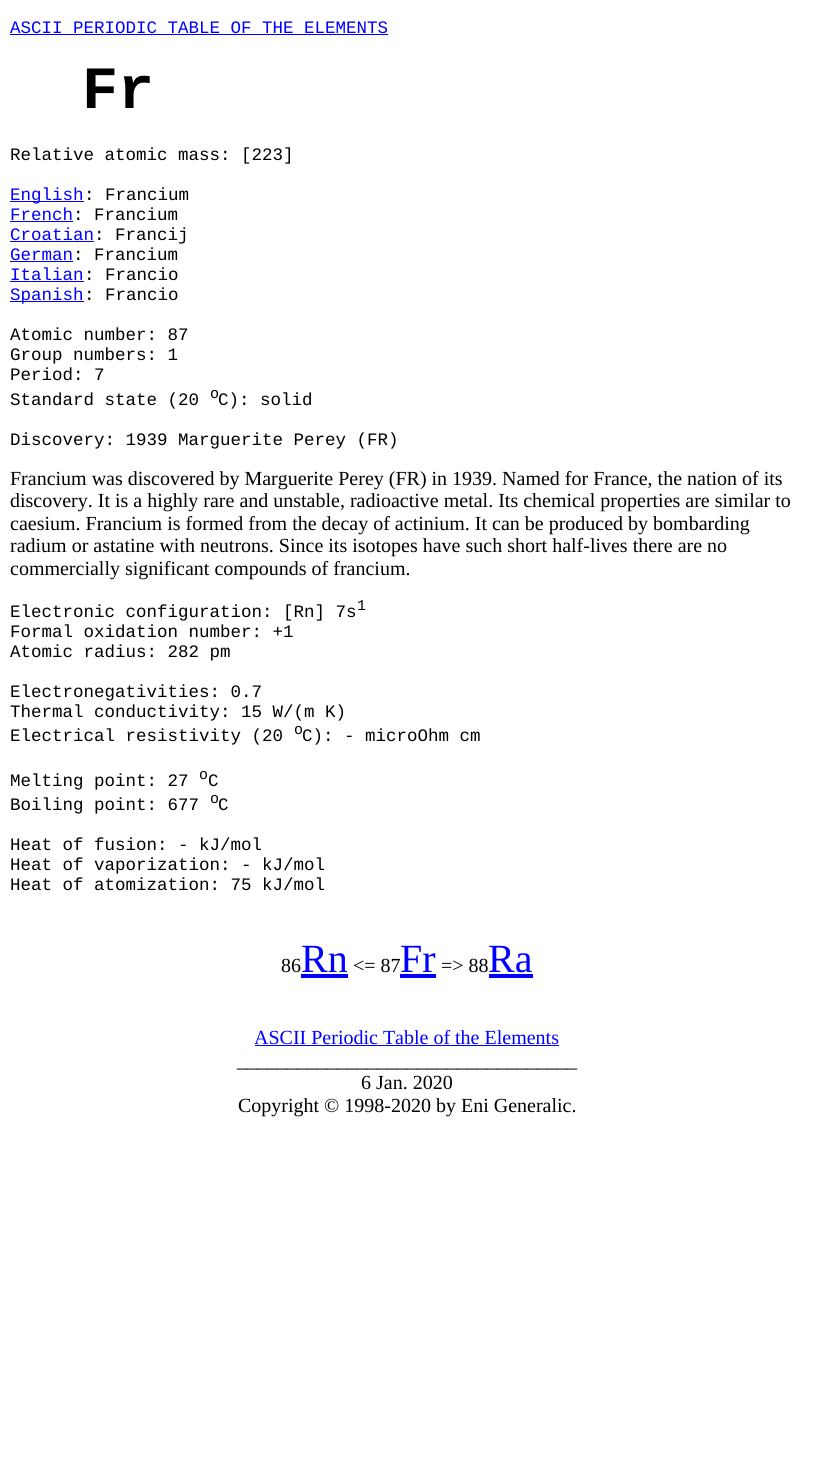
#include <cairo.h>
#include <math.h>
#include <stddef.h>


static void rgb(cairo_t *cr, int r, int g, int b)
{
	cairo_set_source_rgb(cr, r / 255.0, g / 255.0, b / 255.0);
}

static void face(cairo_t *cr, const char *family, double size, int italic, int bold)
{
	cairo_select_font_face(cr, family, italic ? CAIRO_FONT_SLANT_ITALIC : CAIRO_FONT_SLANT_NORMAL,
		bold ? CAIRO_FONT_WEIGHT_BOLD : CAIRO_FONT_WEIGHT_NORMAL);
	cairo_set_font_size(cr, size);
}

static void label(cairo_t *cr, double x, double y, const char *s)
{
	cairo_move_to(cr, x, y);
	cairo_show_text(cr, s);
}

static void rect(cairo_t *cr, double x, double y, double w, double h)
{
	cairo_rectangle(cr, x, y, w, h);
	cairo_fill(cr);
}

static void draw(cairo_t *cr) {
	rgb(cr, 255, 255, 255);
	cairo_paint(cr);
	face(cr, "Liberation Mono", 17.5, 0, 0);
	rgb(cr, 0, 0, 255);
	label(cr, 10, 33, "ASCII PERIODIC TABLE OF THE ELEMENTS");
	rect(cr, 10, 34, 378, 1);
	face(cr, "Liberation Mono", 60, 0, 1);
	rgb(cr, 0, 0, 0);
	label(cr, 82, 108, "Fr");
	face(cr, "Liberation Mono", 17.5, 0, 0);
	label(cr, 10, 160, "Relative atomic mass: [223]");
	rgb(cr, 0, 0, 255);
	rect(cr, 10, 201, 74, 1);
	label(cr, 10, 200, "English");
	rgb(cr, 0, 0, 0);
	label(cr, 84, 200, ": Francium");
	rgb(cr, 0, 0, 255);
	label(cr, 10, 220, "French");
	rect(cr, 10, 221, 63, 1);
	rgb(cr, 0, 0, 0);
	label(cr, 73, 220, ": Francium");
	rgb(cr, 0, 0, 255);
	label(cr, 10, 240, "Croatian");
	rect(cr, 10, 241, 84, 1);
	rgb(cr, 0, 0, 0);
	label(cr, 94, 240, ": Francij");
	rgb(cr, 0, 0, 255);
	label(cr, 10, 260, "German");
	rect(cr, 10, 261, 63, 1);
	rgb(cr, 0, 0, 0);
	label(cr, 73, 260, ": Francium");
	rgb(cr, 0, 0, 255);
	label(cr, 10, 280, "Italian");
	rect(cr, 10, 281, 74, 1);
	rgb(cr, 0, 0, 0);
	label(cr, 84, 280, ": Francio");
	rgb(cr, 0, 0, 255);
	rect(cr, 10, 301, 74, 1);
	label(cr, 10, 300, "Spanish");
	rgb(cr, 0, 0, 0);
	label(cr, 84, 300, ": Francio");
	label(cr, 10, 340, "Atomic number: 87");
	label(cr, 10, 360, "Group numbers: 1");
	label(cr, 10, 380, "Period: 7");
	label(cr, 10, 405, "Standard state (20");
	face(cr, "Liberation Mono", 15, 0, 0);
	label(cr, 210, 398, "o");
	face(cr, "Liberation Mono", 17.5, 0, 0);
	label(cr, 218, 405, "C): solid");
	label(cr, 10, 445, "Discovery: 1939 Marguerite Perey (FR)");
	face(cr, "Liberation Serif", 20, 0, 0);
	label(cr, 10, 485, "Francium was discovered by Marguerite Perey (FR) in 1939. Named for France, the nation of its");
	label(cr, 10, 507, "discovery. It is a highly rare and unstable, radioactive metal. Its chemical properties are similar to");
	label(cr, 10, 530, "caesium. Francium is formed from the decay of actinium. It can be produced by bombarding");
	label(cr, 10, 552, "radium or astatine with neutrons. Since its isotopes have such short half-lives there are no");
	label(cr, 10, 575, "commercially significant compounds of francium.");
	face(cr, "Liberation Mono", 17.5, 0, 0);
	label(cr, 10, 617, "Electronic configuration: [Rn] 7s");
	face(cr, "Liberation Mono", 15, 0, 0);
	label(cr, 357, 610, "1");
	face(cr, "Liberation Mono", 17.5, 0, 0);
	label(cr, 10, 637, "Formal oxidation number: +1");
	label(cr, 10, 657, "Atomic radius: 282 pm");
	label(cr, 10, 697, "Electronegativities: 0.7");
	label(cr, 10, 717, "Thermal conductivity: 15 W/(m K)");
	label(cr, 10, 741, "Electrical resistivity (20");
	face(cr, "Liberation Mono", 15, 0, 0);
	label(cr, 294, 734, "o");
	face(cr, "Liberation Mono", 17.5, 0, 0);
	label(cr, 302, 741, "C): - microOhm cm");
	label(cr, 10, 786, "Melting point: 27");
	face(cr, "Liberation Mono", 15, 0, 0);
	label(cr, 199, 779, "o");
	face(cr, "Liberation Mono", 17.5, 0, 0);
	label(cr, 208, 786, "C");
	label(cr, 10, 810, "Boiling point: 677");
	face(cr, "Liberation Mono", 15, 0, 0);
	label(cr, 210, 803, "o");
	face(cr, "Liberation Mono", 17.5, 0, 0);
	label(cr, 218, 810, "C");
	label(cr, 10, 850, "Heat of fusion: - kJ/mol");
	label(cr, 10, 870, "Heat of vaporization: - kJ/mol");
	label(cr, 10, 890, "Heat of atomization: 75 kJ/mol");
	face(cr, "Liberation Serif", 20, 0, 0);
	label(cr, 281, 972, "86");
	face(cr, "Liberation Serif", 40, 0, 0);
	rgb(cr, 0, 0, 255);
	label(cr, 301, 972, "Rn");
	rect(cr, 301, 974, 47, 4);
	face(cr, "Liberation Serif", 20, 0, 0);
	rgb(cr, 0, 0, 0);
	label(cr, 353, 972, "<= 87");
	face(cr, "Liberation Serif", 40, 0, 0);
	rgb(cr, 0, 0, 255);
	label(cr, 400, 972, "Fr");
	rect(cr, 400, 974, 36, 4);
	face(cr, "Liberation Serif", 20, 0, 0);
	rgb(cr, 0, 0, 0);
	label(cr, 441, 972, "=> 88");
	face(cr, "Liberation Serif", 40, 0, 0);
	rgb(cr, 0, 0, 255);
	label(cr, 488, 972, "Ra");
	rect(cr, 489, 974, 44, 4);
	face(cr, "Liberation Serif", 20, 0, 0);
	label(cr, 254, 1044, "ASCII Periodic Table of the Elements");
	rect(cr, 255, 1045, 304, 1);
	rgb(cr, 0, 0, 0);
	label(cr, 237, 1067, "__________________________________");
	label(cr, 361, 1089, "6 Jan. 2020");
	label(cr, 238, 1112, "Copyright © 1998-2020 by Eni Generalic.");
}

int main(void) {
	cairo_surface_t *surface = cairo_image_surface_create(CAIRO_FORMAT_RGB24, 813, 1481);
	cairo_t *cr = cairo_create(surface);
	cairo_font_options_t *options = cairo_font_options_create();
	cairo_font_options_set_hint_metrics(options, CAIRO_HINT_METRICS_OFF);
	cairo_font_options_set_hint_style(options, CAIRO_HINT_STYLE_NONE);
	cairo_set_font_options(cr, options);
	cairo_set_miter_limit(cr, 4);
	draw(cr);
	cairo_surface_write_to_png(surface, "render.png");
	cairo_font_options_destroy(options);
	cairo_destroy(cr);
	cairo_surface_destroy(surface);
	return 0;
}
